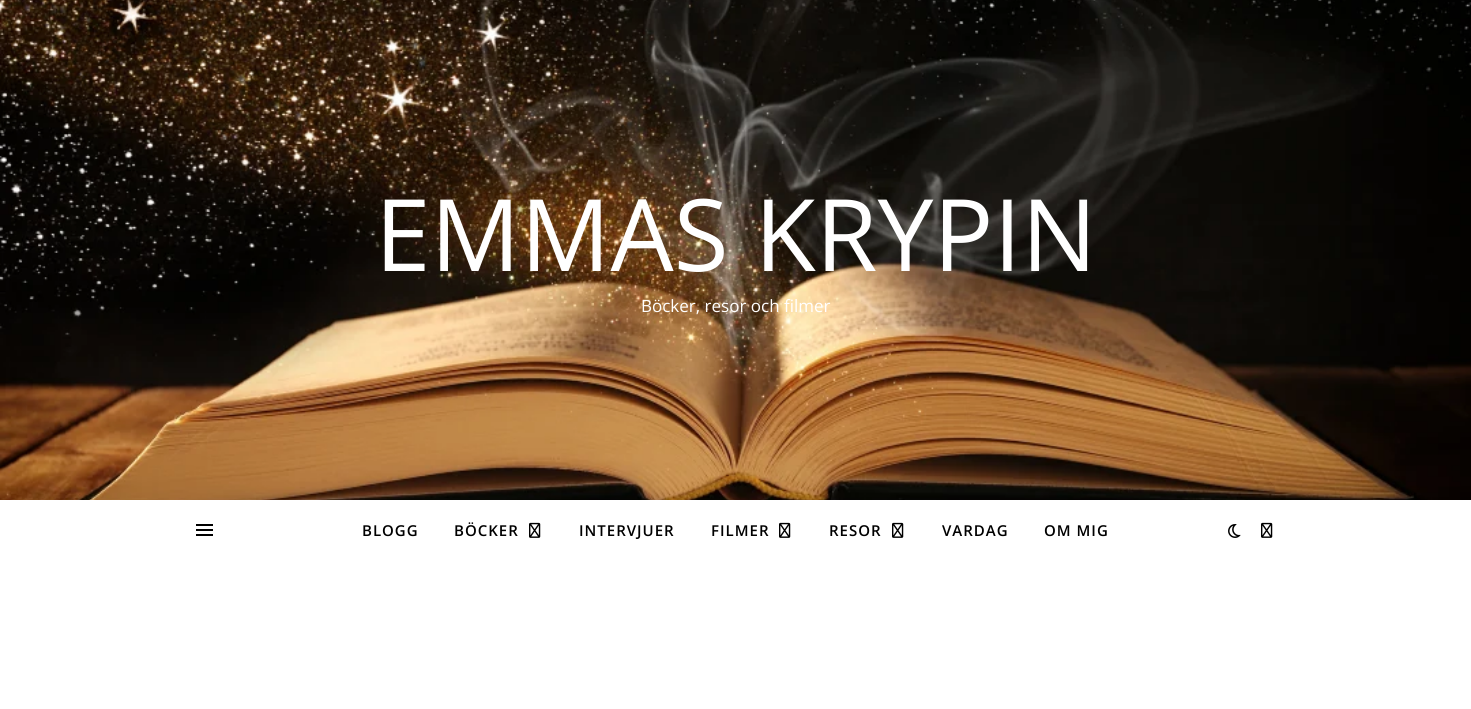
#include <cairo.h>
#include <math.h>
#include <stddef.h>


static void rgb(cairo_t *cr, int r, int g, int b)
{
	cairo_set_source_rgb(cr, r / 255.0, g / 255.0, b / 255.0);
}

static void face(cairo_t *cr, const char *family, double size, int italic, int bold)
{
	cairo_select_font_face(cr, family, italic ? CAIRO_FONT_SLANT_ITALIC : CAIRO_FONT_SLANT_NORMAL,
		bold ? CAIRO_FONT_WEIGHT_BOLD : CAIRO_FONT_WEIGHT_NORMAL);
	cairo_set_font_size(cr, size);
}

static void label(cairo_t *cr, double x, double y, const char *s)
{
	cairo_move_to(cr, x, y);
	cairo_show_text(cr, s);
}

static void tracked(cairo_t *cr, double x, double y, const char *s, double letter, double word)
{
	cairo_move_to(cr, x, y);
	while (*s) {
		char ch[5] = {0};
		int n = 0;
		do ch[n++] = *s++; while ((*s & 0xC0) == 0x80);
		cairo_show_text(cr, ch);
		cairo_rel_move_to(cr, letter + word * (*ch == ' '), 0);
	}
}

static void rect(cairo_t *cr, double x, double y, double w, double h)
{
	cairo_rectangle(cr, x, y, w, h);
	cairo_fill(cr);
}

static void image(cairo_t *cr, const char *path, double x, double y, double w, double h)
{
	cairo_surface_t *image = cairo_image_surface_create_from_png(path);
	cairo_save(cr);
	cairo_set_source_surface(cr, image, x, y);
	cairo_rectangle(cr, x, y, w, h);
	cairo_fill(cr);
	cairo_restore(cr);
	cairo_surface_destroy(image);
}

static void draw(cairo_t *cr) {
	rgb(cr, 255, 255, 255);
	cairo_paint(cr);
	image(cr, "image0.png", 0, 0, 1471, 500);
	face(cr, "Open Sans", 100, 0, 0);
	rgb(cr, 255, 255, 255);
	label(cr, 375, 271, "EMMAS KRYPIN");
	face(cr, "Open Sans", 17, 0, 0);
	label(cr, 641, 312, "Böcker, resor och filmer");
	rgb(cr, 0, 0, 0);
	rect(cr, 196, 524, 17, 2);
	rect(cr, 196, 529, 17, 2);
	rect(cr, 196, 534, 17, 2);
	face(cr, "Open Sans SemiBold", 15, 0, 0);
	tracked(cr, 362, 536, "BLOGG", 1, 0);
	tracked(cr, 454, 536, "BÖCKER", 1, 0);
	image(cr, "image1.png", 529, 522, 12, 16);
	tracked(cr, 579, 536, "INTERVJUER", 1, 0);
	tracked(cr, 711, 536, "FILMER", 1, 0);
	image(cr, "image1.png", 779, 522, 12, 16);
	tracked(cr, 829, 536, "RESOR", 1, 0);
	image(cr, "image1.png", 892, 522, 12, 16);
	tracked(cr, 942, 536, "VARDAG", 1, 0);
	tracked(cr, 1044, 536, "OM MIG", 1, 0);
	image(cr, "image2.png", 1228, 524, 13, 14);
	image(cr, "image1.png", 1261, 522, 12, 16);
}

int main(void) {
	cairo_surface_t *surface = cairo_image_surface_create(CAIRO_FORMAT_RGB24, 1471, 709);
	cairo_t *cr = cairo_create(surface);
	cairo_font_options_t *options = cairo_font_options_create();
	cairo_font_options_set_hint_metrics(options, CAIRO_HINT_METRICS_OFF);
	cairo_font_options_set_hint_style(options, CAIRO_HINT_STYLE_NONE);
	cairo_set_font_options(cr, options);
	cairo_set_miter_limit(cr, 4);
	draw(cr);
	cairo_surface_write_to_png(surface, "render.png");
	cairo_font_options_destroy(options);
	cairo_destroy(cr);
	cairo_surface_destroy(surface);
	return 0;
}
